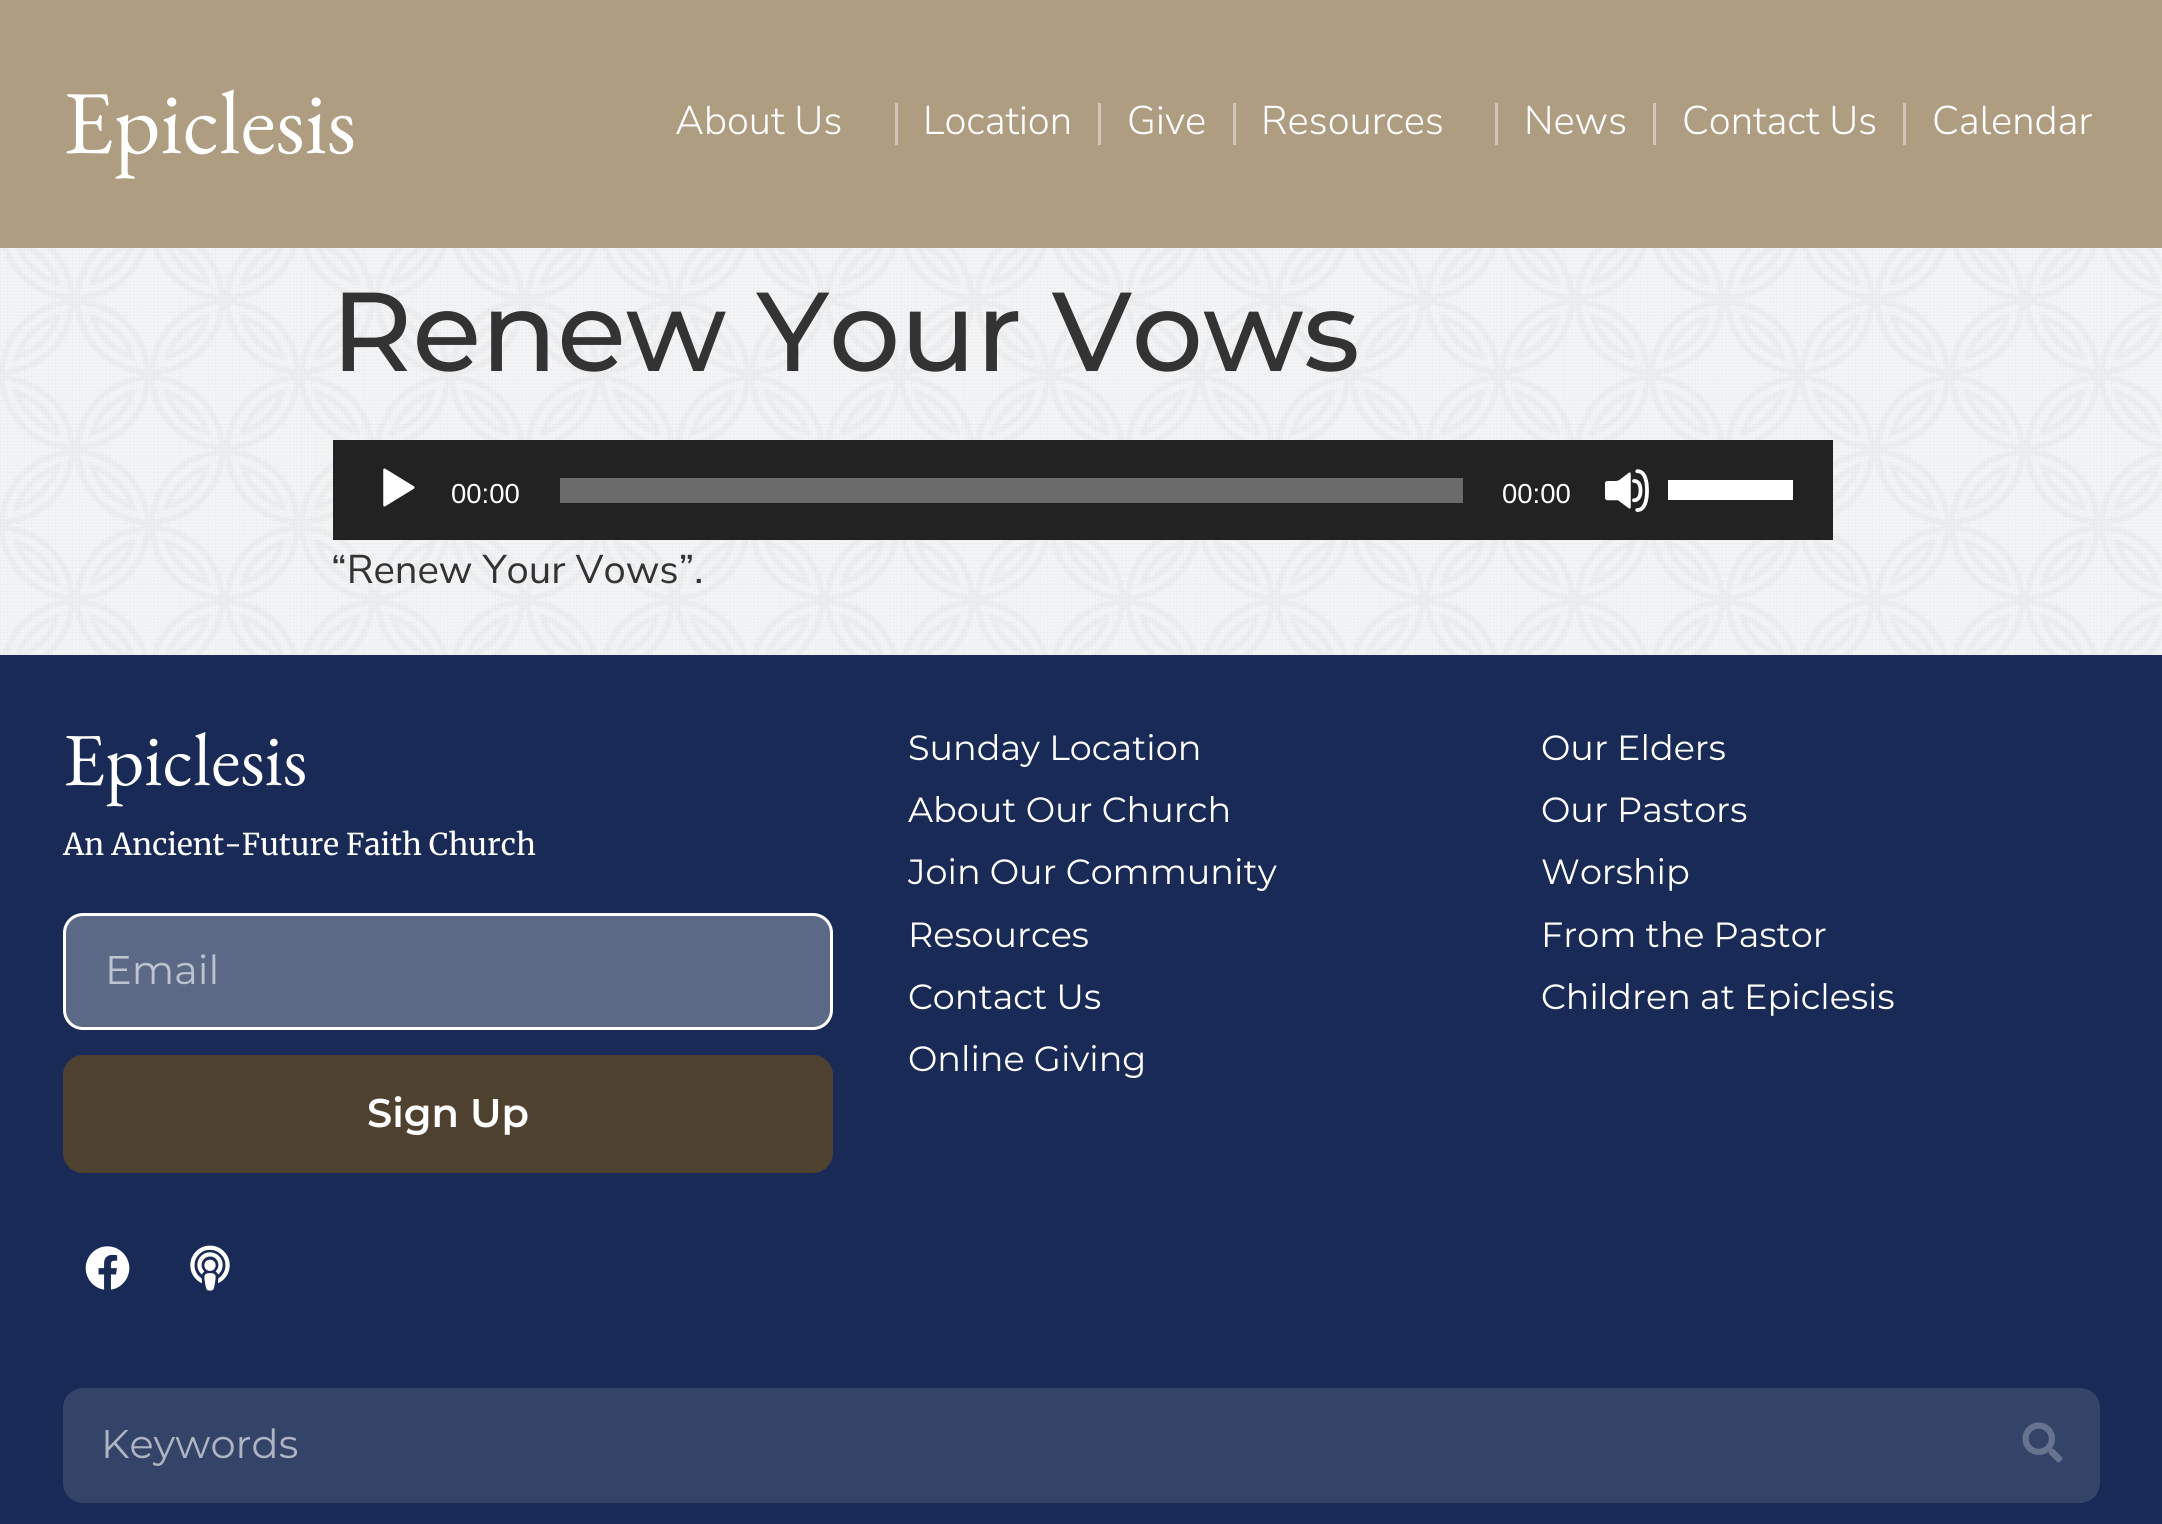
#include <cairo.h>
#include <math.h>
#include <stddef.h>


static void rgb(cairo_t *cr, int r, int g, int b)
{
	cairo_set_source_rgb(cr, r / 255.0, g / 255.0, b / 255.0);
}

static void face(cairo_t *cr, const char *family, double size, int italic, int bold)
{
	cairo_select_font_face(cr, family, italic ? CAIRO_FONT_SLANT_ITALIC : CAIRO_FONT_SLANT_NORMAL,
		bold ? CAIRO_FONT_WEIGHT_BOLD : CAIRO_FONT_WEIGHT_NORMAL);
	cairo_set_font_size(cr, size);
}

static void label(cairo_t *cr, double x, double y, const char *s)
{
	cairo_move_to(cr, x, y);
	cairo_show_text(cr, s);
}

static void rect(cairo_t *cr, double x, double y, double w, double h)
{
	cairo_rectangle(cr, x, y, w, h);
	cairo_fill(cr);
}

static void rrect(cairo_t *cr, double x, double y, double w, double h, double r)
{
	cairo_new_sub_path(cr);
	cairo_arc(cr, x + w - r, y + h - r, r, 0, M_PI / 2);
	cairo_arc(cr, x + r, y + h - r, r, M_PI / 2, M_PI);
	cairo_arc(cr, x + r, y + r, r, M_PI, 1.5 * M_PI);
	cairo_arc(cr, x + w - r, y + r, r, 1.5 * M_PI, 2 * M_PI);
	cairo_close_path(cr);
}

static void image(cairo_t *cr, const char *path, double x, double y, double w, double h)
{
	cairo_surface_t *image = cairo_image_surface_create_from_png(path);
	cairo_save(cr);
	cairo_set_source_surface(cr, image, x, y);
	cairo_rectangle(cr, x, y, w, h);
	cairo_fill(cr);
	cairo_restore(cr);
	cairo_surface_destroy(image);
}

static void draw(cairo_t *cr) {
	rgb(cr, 255, 255, 255);
	cairo_paint(cr);
	image(cr, "image0.png", 0, 248, 2162, 407);
	rgb(cr, 175, 157, 130);
	rect(cr, 0, 0, 2162, 248);
	face(cr, "EB Garamond", 90, 0, 0);
	rgb(cr, 255, 255, 255);
	label(cr, 63, 153, "Epiclesis");
	face(cr, "Nunito Sans Light", 40, 0, 0);
	label(cr, 675, 134, "About Us");
	rgb(cr, 209, 198, 183);
	rect(cr, 895, 103, 3, 42);
	rgb(cr, 255, 255, 255);
	label(cr, 923, 134, "Location");
	rgb(cr, 209, 198, 183);
	rect(cr, 1098, 103, 3, 42);
	rgb(cr, 255, 255, 255);
	label(cr, 1127, 134, "Give");
	rgb(cr, 209, 198, 183);
	rect(cr, 1233, 103, 3, 42);
	rgb(cr, 255, 255, 255);
	label(cr, 1261, 134, "Resources");
	rgb(cr, 209, 198, 183);
	rect(cr, 1495, 103, 3, 42);
	rgb(cr, 255, 255, 255);
	label(cr, 1524, 134, "News");
	rgb(cr, 209, 198, 183);
	rect(cr, 1653, 103, 3, 42);
	rgb(cr, 255, 255, 255);
	label(cr, 1682, 134, "Contact Us");
	rgb(cr, 209, 198, 183);
	rect(cr, 1903, 103, 3, 42);
	rgb(cr, 255, 255, 255);
	label(cr, 1932, 134, "Calendar");
	face(cr, "Montserrat Medium", 112, 0, 0);
	rgb(cr, 51, 51, 51);
	label(cr, 331, 371, "Renew Your Vows");
	rgb(cr, 34, 34, 34);
	rect(cr, 333, 440, 1500, 100);
	image(cr, "image1.png", 383, 468, 32, 39);
	face(cr, "Liberation Sans", 27.5, 0, 0);
	rgb(cr, 255, 255, 255);
	label(cr, 451, 503, "00:00");
	rgb(cr, 107, 107, 107);
	rect(cr, 560, 478, 903, 25);
	rgb(cr, 255, 255, 255);
	label(cr, 1502, 503, "00:00");
	image(cr, "image2.png", 1605, 469, 44, 43);
	rect(cr, 1668, 480, 125, 20);
	face(cr, "Nunito Sans", 40, 0, 0);
	rgb(cr, 51, 51, 51);
	label(cr, 331, 583, "“Renew Your Vows”.");
	rgb(cr, 24, 42, 85);
	rect(cr, 0, 655, 2162, 869);
	face(cr, "EB Garamond", 75, 0, 0);
	rgb(cr, 255, 255, 255);
	label(cr, 63, 785, "Epiclesis");
	face(cr, "Merriweather", 30, 0, 0);
	label(cr, 63, 855, "An Ancient-Future Faith Church");
	rgb(cr, 91, 104, 134);
	rrect(cr, 64.5, 914.5, 767, 114, 18.5);
	cairo_fill_preserve(cr);
	rgb(cr, 255, 255, 255);
	cairo_set_line_width(cr, 3);
	cairo_stroke(cr);
	face(cr, "Montserrat", 40, 0, 0);
	rgb(cr, 189, 195, 207);
	label(cr, 105, 984, "Email");
	rgb(cr, 79, 65, 47);
	rrect(cr, 63, 1055, 770, 118, 20);
	cairo_fill(cr);
	face(cr, "Montserrat SemiBold", 40, 0, 0);
	rgb(cr, 255, 255, 255);
	label(cr, 367, 1127, "Sign Up");
	image(cr, "image3.png", 85, 1246, 45, 44);
	image(cr, "image4.png", 190, 1245, 40, 46);
	face(cr, "Montserrat", 35, 0, 0);
	label(cr, 908, 760, "Sunday Location");
	label(cr, 908, 822, "About Our Church");
	label(cr, 908, 884, "Join Our Community");
	label(cr, 908, 947, "Resources");
	label(cr, 908, 1009, "Contact Us");
	label(cr, 908, 1071, "Online Giving");
	label(cr, 1541, 760, "Our Elders");
	label(cr, 1541, 822, "Our Pastors");
	label(cr, 1541, 884, "Worship");
	label(cr, 1541, 947, "From the Pastor");
	label(cr, 1541, 1009, "Children at Epiclesis");
	rgb(cr, 52, 68, 105);
	rrect(cr, 63, 1388, 2037, 115, 20);
	cairo_fill(cr);
	face(cr, "Montserrat", 40, 0, 0);
	rgb(cr, 174, 180, 195);
	label(cr, 101, 1458, "Keywords");
	image(cr, "image5.png", 2022, 1422, 41, 41);
}

int main(void) {
	cairo_surface_t *surface = cairo_image_surface_create(CAIRO_FORMAT_RGB24, 2162, 1524);
	cairo_t *cr = cairo_create(surface);
	cairo_font_options_t *options = cairo_font_options_create();
	cairo_font_options_set_hint_metrics(options, CAIRO_HINT_METRICS_OFF);
	cairo_font_options_set_hint_style(options, CAIRO_HINT_STYLE_NONE);
	cairo_set_font_options(cr, options);
	cairo_set_miter_limit(cr, 4);
	draw(cr);
	cairo_surface_write_to_png(surface, "render.png");
	cairo_font_options_destroy(options);
	cairo_destroy(cr);
	cairo_surface_destroy(surface);
	return 0;
}
